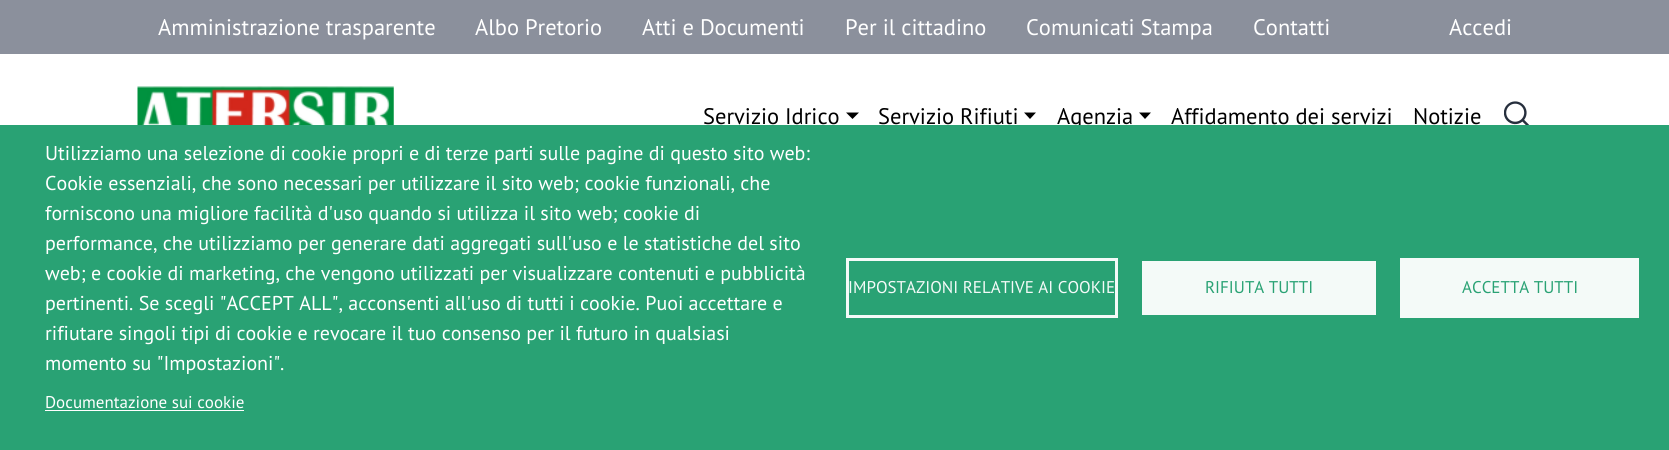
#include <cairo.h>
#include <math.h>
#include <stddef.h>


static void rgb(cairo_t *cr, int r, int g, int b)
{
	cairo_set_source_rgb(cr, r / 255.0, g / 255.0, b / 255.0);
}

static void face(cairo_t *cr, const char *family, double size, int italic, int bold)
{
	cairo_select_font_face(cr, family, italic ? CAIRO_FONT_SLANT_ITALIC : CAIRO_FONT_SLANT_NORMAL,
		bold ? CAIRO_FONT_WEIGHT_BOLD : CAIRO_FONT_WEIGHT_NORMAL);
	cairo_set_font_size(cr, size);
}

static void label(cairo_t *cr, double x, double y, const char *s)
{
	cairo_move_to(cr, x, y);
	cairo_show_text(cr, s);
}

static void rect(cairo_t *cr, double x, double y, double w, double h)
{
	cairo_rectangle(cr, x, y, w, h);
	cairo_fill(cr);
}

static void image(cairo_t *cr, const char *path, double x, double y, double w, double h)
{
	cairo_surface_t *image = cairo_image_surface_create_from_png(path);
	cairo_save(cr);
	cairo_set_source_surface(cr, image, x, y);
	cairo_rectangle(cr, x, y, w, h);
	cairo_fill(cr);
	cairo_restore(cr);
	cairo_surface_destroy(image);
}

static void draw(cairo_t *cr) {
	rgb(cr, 255, 255, 255);
	cairo_paint(cr);
	rgb(cr, 139, 144, 156);
	rect(cr, 0, 0, 1669, 54);
	face(cr, "PT Sans", 22.5, 0, 0);
	rgb(cr, 255, 255, 255);
	label(cr, 158, 35, "Amministrazione trasparente");
	label(cr, 475, 35, "Albo Pretorio");
	label(cr, 642, 35, "Atti e Documenti");
	label(cr, 845, 35, "Per il cittadino");
	label(cr, 1026, 35, "Comunicati Stampa");
	label(cr, 1253, 35, "Contatti");
	label(cr, 1449, 35, "Accedi");
	image(cr, "image0.png", 137, 86, 257, 39);
	rgb(cr, 0, 0, 0);
	label(cr, 703, 124, "Servizio Idrico");
	cairo_new_path(cr);
	cairo_move_to(cr, 846, 112.5);
	cairo_line_to(cr, 859, 112.5);
	cairo_line_to(cr, 852.5, 119);
	cairo_close_path(cr);
	cairo_fill(cr);
	label(cr, 878, 124, "Servizio Rifiuti");
	cairo_new_path(cr);
	cairo_move_to(cr, 1024, 112.5);
	cairo_line_to(cr, 1036, 112.5);
	cairo_line_to(cr, 1030, 119);
	cairo_close_path(cr);
	cairo_fill(cr);
	label(cr, 1057, 124, "Agenzia");
	cairo_new_path(cr);
	cairo_move_to(cr, 1139, 112.5);
	cairo_line_to(cr, 1151, 112.5);
	cairo_line_to(cr, 1145, 119);
	cairo_close_path(cr);
	cairo_fill(cr);
	label(cr, 1171, 124, "Affidamento dei servizi");
	label(cr, 1413, 124, "Notizie");
	image(cr, "image1.png", 1504, 101, 26, 24);
	rgb(cr, 41, 162, 116);
	rect(cr, 0, 125, 1669, 325);
	face(cr, "PT Sans", 20, 0, 0);
	rgb(cr, 255, 255, 255);
	label(cr, 45, 160, "Utilizziamo una selezione di cookie propri e di terze parti sulle pagine di questo sito web:");
	label(cr, 45, 190, "Cookie essenziali, che sono necessari per utilizzare il sito web; cookie funzionali, che");
	label(cr, 45, 220, "forniscono una migliore facilità d'uso quando si utilizza il sito web; cookie di");
	label(cr, 45, 250, "performance, che utilizziamo per generare dati aggregati sull'uso e le statistiche del sito");
	label(cr, 45, 280, "web; e cookie di marketing, che vengono utilizzati per visualizzare contenuti e pubblicità");
	label(cr, 45, 310, "pertinenti. Se scegli \"ACCEPT ALL\", acconsenti all'uso di tutti i cookie. Puoi accettare e");
	label(cr, 45, 340, "rifiutare singoli tipi di cookie e revocare il tuo consenso per il futuro in qualsiasi");
	label(cr, 45, 370, "momento su \"Impostazioni\".");
	face(cr, "PT Sans", 17, 0, 0);
	label(cr, 45, 408, "Documentazione sui cookie");
	rect(cr, 45, 410, 199, 1);
	cairo_rectangle(cr, 847.5, 259.5, 269, 57);
	rgb(cr, 244, 250, 248);
	cairo_set_line_width(cr, 3);
	cairo_stroke(cr);
	label(cr, 848, 293, "IMPOSTAZIONI RELATIVE AI COOKIE");
	rect(cr, 1142, 261, 234, 54);
	rgb(cr, 41, 162, 116);
	label(cr, 1205, 293, "RIFIUTA TUTTI");
	rgb(cr, 244, 250, 248);
	rect(cr, 1400, 258, 239, 60);
	rgb(cr, 41, 162, 116);
	label(cr, 1462, 293, "ACCETTA TUTTI");
}

int main(void) {
	cairo_surface_t *surface = cairo_image_surface_create(CAIRO_FORMAT_RGB24, 1669, 450);
	cairo_t *cr = cairo_create(surface);
	cairo_font_options_t *options = cairo_font_options_create();
	cairo_font_options_set_hint_metrics(options, CAIRO_HINT_METRICS_OFF);
	cairo_font_options_set_hint_style(options, CAIRO_HINT_STYLE_NONE);
	cairo_set_font_options(cr, options);
	cairo_set_miter_limit(cr, 4);
	draw(cr);
	cairo_surface_write_to_png(surface, "render.png");
	cairo_font_options_destroy(options);
	cairo_destroy(cr);
	cairo_surface_destroy(surface);
	return 0;
}
